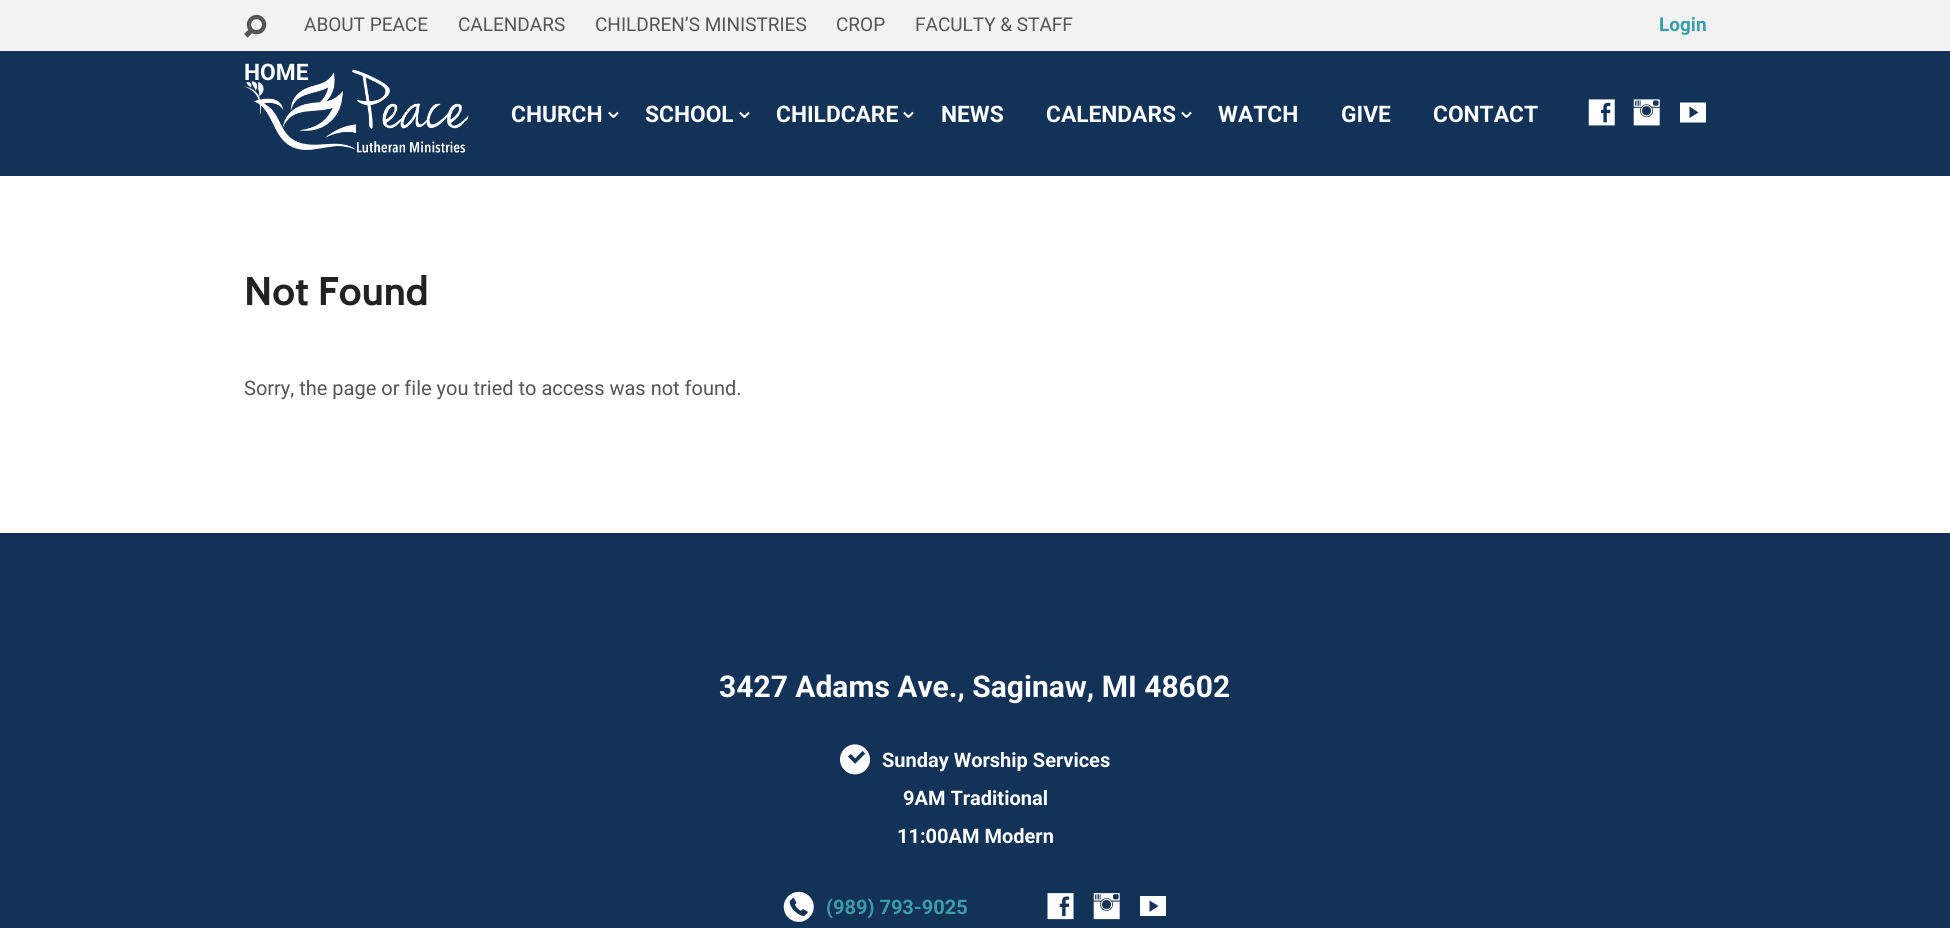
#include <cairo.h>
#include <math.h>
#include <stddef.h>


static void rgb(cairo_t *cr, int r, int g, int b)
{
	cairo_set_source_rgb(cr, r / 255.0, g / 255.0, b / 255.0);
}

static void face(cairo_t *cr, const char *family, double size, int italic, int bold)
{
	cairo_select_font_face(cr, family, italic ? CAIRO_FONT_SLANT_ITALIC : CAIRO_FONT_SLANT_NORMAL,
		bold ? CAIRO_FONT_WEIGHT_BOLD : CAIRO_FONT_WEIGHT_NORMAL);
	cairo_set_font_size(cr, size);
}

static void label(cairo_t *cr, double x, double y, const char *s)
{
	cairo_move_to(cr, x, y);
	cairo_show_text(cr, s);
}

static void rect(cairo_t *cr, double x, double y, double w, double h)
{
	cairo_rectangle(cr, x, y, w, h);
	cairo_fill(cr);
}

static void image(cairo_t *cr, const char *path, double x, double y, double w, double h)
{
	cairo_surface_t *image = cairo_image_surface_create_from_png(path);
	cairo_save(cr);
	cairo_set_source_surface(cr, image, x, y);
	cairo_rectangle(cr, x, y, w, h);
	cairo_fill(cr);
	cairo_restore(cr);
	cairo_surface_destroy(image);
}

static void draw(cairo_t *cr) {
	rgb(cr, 255, 255, 255);
	cairo_paint(cr);
	rgb(cr, 242, 242, 242);
	rect(cr, 0, 0, 1950, 51);
	image(cr, "image0.png", 244, 14, 23, 24);
	face(cr, "Roboto", 19, 0, 0);
	rgb(cr, 85, 85, 85);
	label(cr, 304, 31, "ABOUT PEACE");
	label(cr, 458, 31, "CALENDARS");
	label(cr, 595, 31, "CHILDREN’S MINISTRIES");
	label(cr, 836, 31, "CROP");
	label(cr, 915, 31, "FACULTY & STAFF");
	face(cr, "Roboto", 19, 0, 1);
	rgb(cr, 60, 156, 167);
	label(cr, 1659, 31, "Login");
	rgb(cr, 18, 50, 87);
	rect(cr, 0, 51, 1950, 125);
	image(cr, "image1.png", 244, 69, 225, 84);
	face(cr, "Roboto", 22.75, 0, 1);
	rgb(cr, 255, 255, 255);
	label(cr, 244, 80, "HOME");
	label(cr, 511, 122, "CHURCH");
	face(cr, "DejaVu Sans", 25, 0, 0);
	label(cr, 603, 118, "⌄");
	face(cr, "Roboto", 22.75, 0, 1);
	label(cr, 645, 122, "SCHOOL");
	face(cr, "DejaVu Sans", 25, 0, 0);
	label(cr, 734, 118, "⌄");
	face(cr, "Roboto", 22.75, 0, 1);
	label(cr, 776, 122, "CHILDCARE");
	face(cr, "DejaVu Sans", 25, 0, 0);
	label(cr, 898, 118, "⌄");
	face(cr, "Roboto", 22.75, 0, 1);
	label(cr, 941, 122, "NEWS");
	label(cr, 1046, 122, "CALENDARS");
	face(cr, "DejaVu Sans", 25, 0, 0);
	label(cr, 1176, 118, "⌄");
	face(cr, "Roboto", 22.75, 0, 1);
	label(cr, 1218, 122, "WATCH");
	label(cr, 1341, 122, "GIVE");
	label(cr, 1433, 122, "CONTACT");
	image(cr, "image2.png", 1588, 99, 27, 27);
	image(cr, "image3.png", 1633, 99, 27, 27);
	cairo_new_path(cr);
	cairo_move_to(cr, 1706, 122.5);
	cairo_line_to(cr, 1680, 122.5);
	cairo_line_to(cr, 1680, 102.5);
	cairo_line_to(cr, 1706, 102.5);
	cairo_close_path(cr);
	cairo_move_to(cr, 1689.5, 118);
	cairo_line_to(cr, 1698.5, 112.5);
	cairo_line_to(cr, 1689.5, 106.5);
	cairo_close_path(cr);
	cairo_fill(cr);
	face(cr, "Cabin", 40, 0, 1);
	rgb(cr, 34, 34, 34);
	label(cr, 244, 305, "Not Found");
	face(cr, "Roboto", 20, 0, 0);
	rgb(cr, 85, 85, 85);
	label(cr, 244, 395, "Sorry, the page or file you tried to access was not found.");
	rgb(cr, 18, 50, 87);
	rect(cr, 0, 533, 1950, 395);
	face(cr, "Roboto", 30, 0, 1);
	rgb(cr, 255, 255, 255);
	label(cr, 719, 697, "3427 Adams Ave., Saginaw, MI 48602");
	image(cr, "image4.png", 840, 744, 30, 31);
	face(cr, "Roboto", 20, 0, 1);
	label(cr, 882, 767, "Sunday Worship Services");
	label(cr, 903, 805, "9AM Traditional");
	label(cr, 897, 843, "11:00AM Modern");
	image(cr, "image5.png", 783, 891, 31, 31);
	rgb(cr, 60, 156, 167);
	label(cr, 826, 914, "(989) 793-9025");
	image(cr, "image6.png", 1047, 893, 27, 27);
	image(cr, "image7.png", 1093, 893, 27, 27);
	rgb(cr, 255, 255, 255);
	cairo_new_path(cr);
	cairo_move_to(cr, 1166, 916);
	cairo_line_to(cr, 1140, 916);
	cairo_line_to(cr, 1140, 896);
	cairo_line_to(cr, 1166, 896);
	cairo_close_path(cr);
	cairo_move_to(cr, 1149.5, 912);
	cairo_line_to(cr, 1158.5, 906);
	cairo_line_to(cr, 1149.5, 900.5);
	cairo_close_path(cr);
	cairo_fill(cr);
}

int main(void) {
	cairo_surface_t *surface = cairo_image_surface_create(CAIRO_FORMAT_RGB24, 1950, 928);
	cairo_t *cr = cairo_create(surface);
	cairo_font_options_t *options = cairo_font_options_create();
	cairo_font_options_set_hint_metrics(options, CAIRO_HINT_METRICS_OFF);
	cairo_font_options_set_hint_style(options, CAIRO_HINT_STYLE_NONE);
	cairo_set_font_options(cr, options);
	cairo_set_miter_limit(cr, 4);
	draw(cr);
	cairo_surface_write_to_png(surface, "render.png");
	cairo_font_options_destroy(options);
	cairo_destroy(cr);
	cairo_surface_destroy(surface);
	return 0;
}
